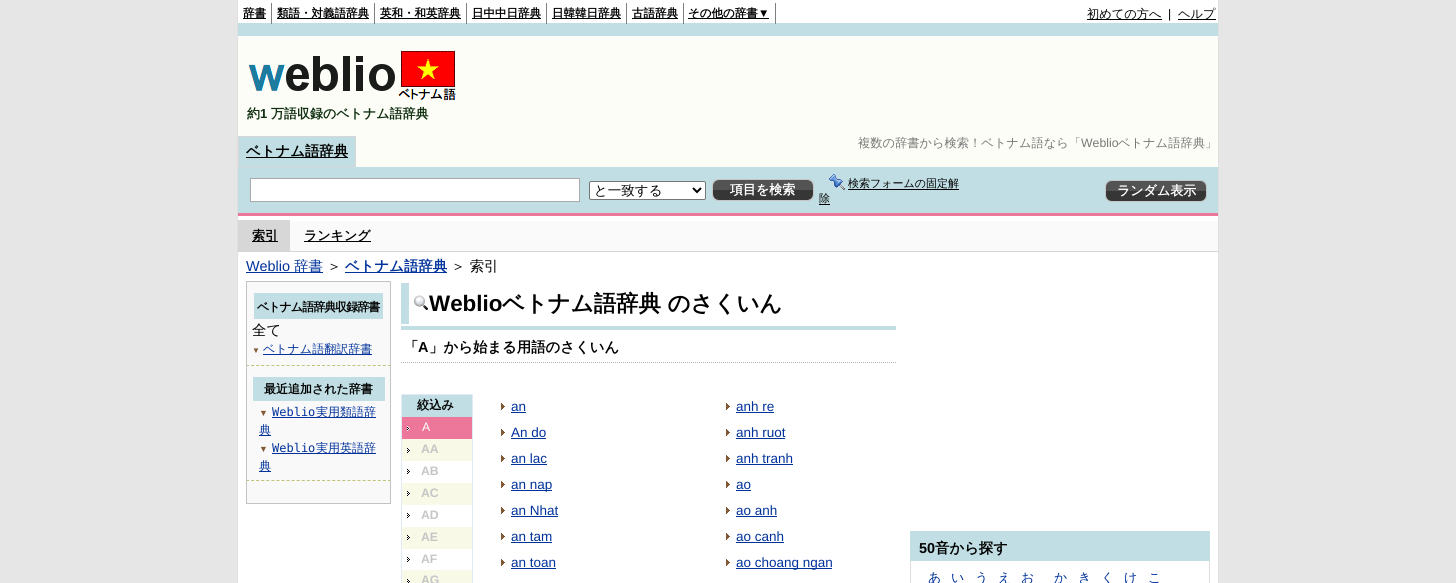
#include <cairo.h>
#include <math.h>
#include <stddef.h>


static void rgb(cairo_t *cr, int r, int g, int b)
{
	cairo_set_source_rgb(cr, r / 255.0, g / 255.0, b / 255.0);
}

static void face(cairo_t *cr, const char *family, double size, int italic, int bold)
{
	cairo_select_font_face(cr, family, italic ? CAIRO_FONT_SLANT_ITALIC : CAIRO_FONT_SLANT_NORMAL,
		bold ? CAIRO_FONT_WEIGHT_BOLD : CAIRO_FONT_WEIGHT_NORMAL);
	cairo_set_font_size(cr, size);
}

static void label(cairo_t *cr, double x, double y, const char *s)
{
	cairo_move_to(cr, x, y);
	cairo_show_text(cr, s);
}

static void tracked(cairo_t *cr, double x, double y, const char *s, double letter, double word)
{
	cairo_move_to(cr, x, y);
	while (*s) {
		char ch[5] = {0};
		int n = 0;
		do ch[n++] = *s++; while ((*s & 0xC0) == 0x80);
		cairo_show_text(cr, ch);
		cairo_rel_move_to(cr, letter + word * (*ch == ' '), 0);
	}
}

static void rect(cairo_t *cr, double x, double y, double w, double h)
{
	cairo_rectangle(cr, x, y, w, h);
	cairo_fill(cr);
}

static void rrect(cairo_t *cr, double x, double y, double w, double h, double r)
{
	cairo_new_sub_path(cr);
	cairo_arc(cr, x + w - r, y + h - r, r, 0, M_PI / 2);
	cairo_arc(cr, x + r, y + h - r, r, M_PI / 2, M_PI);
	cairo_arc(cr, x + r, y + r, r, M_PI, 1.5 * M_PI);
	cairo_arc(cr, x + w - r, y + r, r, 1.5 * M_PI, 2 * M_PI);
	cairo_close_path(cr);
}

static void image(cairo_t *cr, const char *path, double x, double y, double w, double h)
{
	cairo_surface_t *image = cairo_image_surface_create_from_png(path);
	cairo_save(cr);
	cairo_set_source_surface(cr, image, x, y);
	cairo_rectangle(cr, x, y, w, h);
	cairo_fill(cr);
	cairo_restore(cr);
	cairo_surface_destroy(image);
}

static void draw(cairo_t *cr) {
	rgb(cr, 230, 230, 230);
	cairo_paint(cr);
	rgb(cr, 255, 255, 255);
	rect(cr, 238, 0, 980, 583);
	rgb(cr, 224, 224, 224);
	rect(cr, 1218, 0, 1, 583);
	rect(cr, 237, 0, 1, 583);
	rgb(cr, 192, 222, 227);
	rect(cr, 238, 23, 980, 13);
	rgb(cr, 127, 127, 127);
	rect(cr, 271, 3, 1, 21);
	rgb(cr, 0, 0, 0);
	rect(cr, 243, 18, 23, 1);
	face(cr, "WenQuanYi Zen Hei", 11.5, 0, 1);
	label(cr, 243, 17, "辞書");
	rgb(cr, 127, 127, 127);
	rect(cr, 374, 3, 1, 21);
	rgb(cr, 0, 0, 0);
	rect(cr, 277, 18, 92, 1);
	label(cr, 277, 17, "類語・対義語辞典");
	rgb(cr, 127, 127, 127);
	rect(cr, 466, 3, 1, 21);
	rgb(cr, 0, 0, 0);
	rect(cr, 380, 18, 81, 1);
	label(cr, 380, 17, "英和・和英辞典");
	rgb(cr, 127, 127, 127);
	rect(cr, 546, 3, 1, 21);
	rgb(cr, 0, 0, 0);
	rect(cr, 472, 18, 69, 1);
	label(cr, 472, 17, "日中中日辞典");
	rgb(cr, 127, 127, 127);
	rect(cr, 626, 3, 1, 21);
	rgb(cr, 0, 0, 0);
	rect(cr, 552, 18, 69, 1);
	label(cr, 552, 17, "日韓韓日辞典");
	rgb(cr, 127, 127, 127);
	rect(cr, 683, 3, 1, 21);
	rgb(cr, 0, 0, 0);
	rect(cr, 632, 18, 46, 1);
	label(cr, 632, 17, "古語辞典");
	rgb(cr, 127, 127, 127);
	rect(cr, 775, 3, 1, 21);
	rgb(cr, 0, 0, 0);
	rect(cr, 688, 18, 81, 1);
	label(cr, 688, 17, "その他の辞書");
	face(cr, "Liberation Sans", 11.5, 0, 1);
	label(cr, 758, 17, "▼");
	rect(cr, 1087, 19, 75, 1);
	face(cr, "WenQuanYi Zen Hei Medium", 12.25, 0, 0);
	label(cr, 1087, 18, "初めての方へ");
	face(cr, "Liberation Sans", 12.25, 0, 0);
	label(cr, 1168, 18, "|");
	rect(cr, 1178, 19, 38, 1);
	face(cr, "WenQuanYi Zen Hei Medium", 12.25, 0, 0);
	label(cr, 1178, 18, "ヘルプ");
	rgb(cr, 253, 253, 247);
	rect(cr, 238, 36, 980, 100);
	image(cr, "image0.png", 248, 51, 208, 50);
	face(cr, "WenQuanYi Zen Hei", 13, 0, 1);
	rgb(cr, 16, 48, 17);
	label(cr, 247, 118, "約");
	face(cr, "Liberation Sans", 13, 0, 1);
	label(cr, 260, 118, "1");
	face(cr, "WenQuanYi Zen Hei", 13, 0, 1);
	label(cr, 271, 118, "万語収録のベトナム語辞典");
	rgb(cr, 253, 253, 247);
	rect(cr, 356, 136, 862, 31);
	face(cr, "WenQuanYi Zen Hei Medium", 12.25, 0, 0);
	rgb(cr, 119, 119, 119);
	label(cr, 858, 147, "複数の辞書から検索！ベトナム語なら「");
	face(cr, "Liberation Sans", 12.25, 0, 0);
	label(cr, 1081, 147, "Weblio");
	face(cr, "WenQuanYi Zen Hei Medium", 12.25, 0, 0);
	label(cr, 1118, 147, "ベトナム語辞典」");
	rgb(cr, 192, 222, 227);
	cairo_rectangle(cr, 238.5, 136.5, 117, 30);
	cairo_fill_preserve(cr);
	rgb(cr, 215, 215, 215);
	cairo_set_line_width(cr, 1);
	cairo_stroke(cr);
	rgb(cr, 0, 0, 0);
	rect(cr, 246, 157, 102, 1);
	face(cr, "WenQuanYi Zen Hei", 14.4, 0, 1);
	label(cr, 246, 156, "ベトナム語辞典");
	rgb(cr, 192, 222, 227);
	rect(cr, 238, 167, 980, 46);
	rgb(cr, 236, 119, 155);
	rect(cr, 238, 213, 980, 3);
	rgb(cr, 255, 255, 255);
	rect(cr, 251, 179, 328, 22);
	rgb(cr, 169, 169, 169);
	rect(cr, 250, 178, 330, 1);
	rect(cr, 579, 178, 1, 24);
	rect(cr, 250, 201, 330, 1);
	rect(cr, 250, 178, 1, 24);
	rgb(cr, 255, 255, 255);
	rrect(cr, 589.5, 181.5, 116, 18, 1.5);
	cairo_fill_preserve(cr);
	rgb(cr, 118, 118, 118);
	cairo_stroke(cr);
	cairo_new_path(cr);
	cairo_move_to(cr, 693, 188);
	cairo_line_to(cr, 697, 192);
	cairo_line_to(cr, 701, 188);
	rgb(cr, 0, 0, 0);
	cairo_set_line_width(cr, 2);
	cairo_stroke(cr);
	face(cr, "WenQuanYi Zen Hei Medium", 13.5, 0, 0);
	label(cr, 594, 195, "と一致する");
	rgb(cr, 232, 232, 232);
	rrect(cr, 712.5, 179.5, 101, 21, 5.5);
	cairo_fill_preserve(cr);
	rgb(cr, 197, 197, 197);
	cairo_set_line_width(cr, 1);
	cairo_stroke(cr);
	rgb(cr, 83, 83, 83);
	cairo_new_path(cr);
	cairo_move_to(cr, 719, 180);
	cairo_line_to(cr, 807, 180);
	cairo_curve_to(cr, 810.5, 180, 813, 182.5, 813, 186);
	cairo_line_to(cr, 813, 190);
	cairo_line_to(cr, 713, 190);
	cairo_line_to(cr, 713, 186);
	cairo_curve_to(cr, 713, 182.5, 715.5, 180, 719, 180);
	cairo_close_path(cr);
	cairo_fill(cr);
	rgb(cr, 54, 54, 54);
	cairo_new_path(cr);
	cairo_move_to(cr, 713, 190);
	cairo_line_to(cr, 813, 190);
	cairo_line_to(cr, 813, 194);
	cairo_curve_to(cr, 813, 197.5, 810.5, 200, 807, 200);
	cairo_line_to(cr, 719, 200);
	cairo_curve_to(cr, 715.5, 200, 713, 197.5, 713, 194);
	cairo_close_path(cr);
	cairo_fill(cr);
	face(cr, "WenQuanYi Zen Hei", 13, 0, 1);
	rgb(cr, 255, 255, 255);
	label(cr, 730, 194, "項目を検索");
	image(cr, "image1.png", 829, 174, 16, 16);
	face(cr, "WenQuanYi Zen Hei Medium", 11, 0, 0);
	rgb(cr, 0, 0, 0);
	label(cr, 848, 187, "検索フォームの固定解");
	rect(cr, 848, 189, 111, 1);
	label(cr, 819, 202, "除");
	rect(cr, 819, 204, 11, 1);
	rrect(cr, 1105.5, 180.5, 101, 21, 5.5);
	rgb(cr, 197, 197, 197);
	cairo_stroke(cr);
	rgb(cr, 83, 83, 83);
	cairo_new_path(cr);
	cairo_move_to(cr, 1112, 181);
	cairo_line_to(cr, 1200, 181);
	cairo_curve_to(cr, 1203.5, 181, 1206, 183.5, 1206, 187);
	cairo_line_to(cr, 1206, 191);
	cairo_line_to(cr, 1106, 191);
	cairo_line_to(cr, 1106, 187);
	cairo_curve_to(cr, 1106, 183.5, 1108.5, 181, 1112, 181);
	cairo_close_path(cr);
	cairo_fill(cr);
	rgb(cr, 54, 54, 54);
	cairo_new_path(cr);
	cairo_move_to(cr, 1106, 191);
	cairo_line_to(cr, 1206, 191);
	cairo_line_to(cr, 1206, 195);
	cairo_curve_to(cr, 1206, 198.5, 1203.5, 201, 1200, 201);
	cairo_line_to(cr, 1112, 201);
	cairo_curve_to(cr, 1108.5, 201, 1106, 198.5, 1106, 195);
	cairo_close_path(cr);
	cairo_fill(cr);
	face(cr, "WenQuanYi Zen Hei", 13, 0, 1);
	rgb(cr, 255, 255, 255);
	label(cr, 1117, 195, "ランダム表示");
	rgb(cr, 250, 250, 250);
	rect(cr, 290, 221, 928, 30);
	rgb(cr, 213, 213, 213);
	rect(cr, 238, 251, 980, 1);
	rgb(cr, 215, 215, 215);
	rect(cr, 238, 220, 52, 31);
	rgb(cr, 0, 0, 0);
	rect(cr, 252, 241, 26, 1);
	label(cr, 252, 240, "索引");
	rect(cr, 304, 241, 67, 1);
	label(cr, 304, 240, "ランキング");
	face(cr, "Liberation Sans", 14.4, 0, 0);
	rgb(cr, 0, 50, 155);
	label(cr, 246, 271, "Weblio");
	rect(cr, 246, 272, 77, 1);
	face(cr, "WenQuanYi Zen Hei Medium", 14.4, 0, 0);
	label(cr, 294, 271, "辞書");
	rgb(cr, 0, 0, 0);
	label(cr, 327, 271, "＞");
	rgb(cr, 0, 50, 155);
	rect(cr, 345, 272, 102, 1);
	face(cr, "WenQuanYi Zen Hei", 14.4, 0, 1);
	label(cr, 345, 271, "ベトナム語辞典");
	face(cr, "WenQuanYi Zen Hei Medium", 14.4, 0, 0);
	rgb(cr, 0, 0, 0);
	label(cr, 451, 271, "＞ 索引");
	rgb(cr, 249, 249, 249);
	rect(cr, 247, 282, 143, 221);
	rgb(cr, 195, 195, 195);
	rect(cr, 246, 281, 145, 1);
	rect(cr, 390, 281, 1, 84);
	rect(cr, 246, 281, 1, 84);
	rgb(cr, 192, 222, 227);
	rect(cr, 254, 293, 129, 26);
	face(cr, "WenQuanYi Zen Hei", 12, 0, 1);
	rgb(cr, 0, 0, 0);
	tracked(cr, 257, 311, "ベトナム語辞典収録辞書", -1, 0);
	face(cr, "WenQuanYi Zen Hei Medium", 14.4, 0, 0);
	label(cr, 252, 335, "全て");
	face(cr, "Liberation Sans", 8, 0, 1);
	rgb(cr, 130, 89, 52);
	label(cr, 252, 353, "▼");
	rgb(cr, 0, 50, 155);
	rect(cr, 263, 354, 109, 1);
	face(cr, "WenQuanYi Zen Hei Medium", 12, 0, 0);
	label(cr, 263, 353, "ベトナム語翻訳辞書");
	cairo_new_path(cr);
	cairo_move_to(cr, 246, 365.5);
	cairo_line_to(cr, 391, 365.5);
	rgb(cr, 194, 194, 122);
	cairo_set_dash(cr, (double[]){3, 2.07}, 2, 0);
	cairo_stroke(cr);
	rgb(cr, 195, 195, 195);
	rect(cr, 390, 365, 1, 115);
	rect(cr, 246, 365, 1, 115);
	rgb(cr, 192, 222, 227);
	rect(cr, 253, 377, 132, 24);
	face(cr, "WenQuanYi Zen Hei", 12, 0, 1);
	rgb(cr, 0, 0, 0);
	label(cr, 264, 393, "最近追加された辞書");
	face(cr, "Liberation Sans", 9, 0, 0);
	rgb(cr, 130, 89, 52);
	label(cr, 259, 416, "▼");
	face(cr, "DejaVu Sans Mono", 12, 0, 0);
	rgb(cr, 0, 50, 155);
	label(cr, 272, 416, "Weblio");
	rect(cr, 272, 417, 104, 1);
	face(cr, "WenQuanYi Zen Hei Medium", 12, 0, 0);
	label(cr, 316, 416, "実用類語辞");
	rect(cr, 259, 435, 12, 1);
	label(cr, 259, 434, "典");
	face(cr, "Liberation Sans", 9, 0, 0);
	rgb(cr, 130, 89, 52);
	label(cr, 259, 452, "▼");
	face(cr, "DejaVu Sans Mono", 12, 0, 0);
	rgb(cr, 0, 50, 155);
	label(cr, 272, 452, "Weblio");
	rect(cr, 272, 453, 104, 1);
	face(cr, "WenQuanYi Zen Hei Medium", 12, 0, 0);
	label(cr, 316, 452, "実用英語辞");
	rect(cr, 259, 471, 12, 1);
	label(cr, 259, 470, "典");
	cairo_new_path(cr);
	cairo_move_to(cr, 246, 480.5);
	cairo_line_to(cr, 391, 480.5);
	rgb(cr, 194, 194, 122);
	cairo_stroke(cr);
	rgb(cr, 195, 195, 195);
	rect(cr, 390, 480, 1, 24);
	rect(cr, 246, 480, 1, 12);
	rect(cr, 246, 503, 145, 1);
	rect(cr, 246, 492, 1, 12);
	rgb(cr, 192, 222, 227);
	rect(cr, 401, 326, 495, 4);
	rect(cr, 401, 283, 8, 41);
	image(cr, "image2.png", 414, 295, 14, 15);
	face(cr, "Liberation Sans", 22.4, 0, 1);
	rgb(cr, 0, 0, 0);
	label(cr, 429, 311, "Weblio");
	face(cr, "WenQuanYi Zen Hei", 22.4, 0, 1);
	label(cr, 502, 311, "ベトナム語辞典 のさくいん");
	cairo_new_path(cr);
	cairo_move_to(cr, 401, 362.5);
	cairo_line_to(cr, 896, 362.5);
	rgb(cr, 181, 182, 181);
	cairo_set_dash(cr, (double[]){1, 1}, 2, 0);
	cairo_stroke(cr);
	face(cr, "WenQuanYi Zen Hei", 14.4, 0, 1);
	rgb(cr, 0, 0, 0);
	label(cr, 404, 352, "「");
	face(cr, "Liberation Sans", 14.4, 0, 1);
	label(cr, 418, 352, "A");
	face(cr, "WenQuanYi Zen Hei", 14.4, 0, 1);
	label(cr, 429, 352, "」から始まる用語のさくいん");
	cairo_rectangle(cr, 401.5, 394.5, 71, 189);
	rgb(cr, 226, 234, 248);
	cairo_set_dash(cr, NULL, 0, 0);
	cairo_stroke(cr);
	rgb(cr, 192, 222, 227);
	rect(cr, 402, 395, 70, 22);
	face(cr, "WenQuanYi Zen Hei", 12.25, 0, 1);
	rgb(cr, 0, 0, 0);
	label(cr, 417, 409, "絞込み");
	rgb(cr, 236, 119, 155);
	rect(cr, 402, 417, 70, 22);
	image(cr, "image3.png", 407, 426, 3, 5);
	face(cr, "Liberation Sans", 12.25, 0, 0);
	rgb(cr, 255, 255, 255);
	label(cr, 422, 431, "A");
	rgb(cr, 249, 249, 232);
	rect(cr, 402, 439, 70, 22);
	image(cr, "image4.png", 407, 448, 3, 5);
	face(cr, "Liberation Sans", 12.25, 0, 1);
	rgb(cr, 197, 198, 197);
	label(cr, 421, 453, "AA");
	image(cr, "image4.png", 407, 469, 3, 5);
	label(cr, 421, 475, "AB");
	rgb(cr, 249, 249, 232);
	rect(cr, 402, 483, 70, 22);
	image(cr, "image4.png", 407, 491, 3, 5);
	rgb(cr, 197, 198, 197);
	label(cr, 421, 497, "AC");
	image(cr, "image4.png", 407, 513, 3, 5);
	label(cr, 421, 519, "AD");
	rgb(cr, 249, 249, 232);
	rect(cr, 402, 527, 70, 22);
	image(cr, "image4.png", 407, 535, 3, 5);
	rgb(cr, 197, 198, 197);
	label(cr, 421, 541, "AE");
	image(cr, "image4.png", 407, 557, 3, 5);
	label(cr, 421, 563, "AF");
	rgb(cr, 249, 249, 232);
	rect(cr, 402, 570, 70, 13);
	image(cr, "image5.png", 407, 579, 3, 4);
	rgb(cr, 197, 198, 197);
	label(cr, 421, 584, "AG");
	image(cr, "image6.png", 501, 403, 4, 7);
	face(cr, "Liberation Sans", 13.5, 0, 0);
	rgb(cr, 0, 50, 155);
	label(cr, 511, 411, "an");
	rect(cr, 511, 412, 15, 1);
	image(cr, "image6.png", 501, 429, 4, 7);
	label(cr, 511, 437, "An do");
	rect(cr, 511, 438, 35, 1);
	image(cr, "image6.png", 501, 455, 4, 7);
	label(cr, 511, 463, "an lac");
	rect(cr, 511, 464, 36, 1);
	image(cr, "image6.png", 501, 481, 4, 7);
	rect(cr, 511, 490, 41, 1);
	label(cr, 511, 489, "an nap");
	image(cr, "image6.png", 501, 507, 4, 7);
	label(cr, 511, 515, "an Nhat");
	rect(cr, 511, 516, 47, 1);
	image(cr, "image6.png", 501, 533, 4, 7);
	label(cr, 511, 541, "an tam");
	rect(cr, 511, 542, 41, 1);
	image(cr, "image6.png", 501, 559, 4, 7);
	label(cr, 511, 567, "an toan");
	rect(cr, 511, 568, 45, 1);
	image(cr, "image6.png", 726, 403, 4, 7);
	label(cr, 736, 411, "anh re");
	rect(cr, 736, 412, 38, 1);
	image(cr, "image6.png", 726, 429, 4, 7);
	label(cr, 736, 437, "anh ruot");
	rect(cr, 736, 438, 49, 1);
	image(cr, "image6.png", 726, 455, 4, 7);
	label(cr, 736, 463, "anh tranh");
	rect(cr, 736, 464, 57, 1);
	image(cr, "image6.png", 726, 481, 4, 7);
	label(cr, 736, 489, "ao");
	rect(cr, 736, 490, 15, 1);
	image(cr, "image6.png", 726, 507, 4, 7);
	label(cr, 736, 515, "ao anh");
	rect(cr, 736, 516, 41, 1);
	image(cr, "image6.png", 726, 533, 4, 7);
	label(cr, 736, 541, "ao canh");
	rect(cr, 736, 542, 48, 1);
	image(cr, "image6.png", 726, 559, 4, 7);
	rect(cr, 736, 568, 96, 1);
	label(cr, 736, 567, "ao choang ngan");
	rgb(cr, 192, 222, 227);
	rect(cr, 910, 531, 300, 30);
	face(cr, "Liberation Sans", 14.4, 0, 1);
	rgb(cr, 0, 0, 0);
	label(cr, 919, 553, "50");
	face(cr, "WenQuanYi Zen Hei", 14.4, 0, 1);
	label(cr, 935, 553, "音から探す");
	rgb(cr, 221, 221, 221);
	rect(cr, 1209, 561, 1, 22);
	rect(cr, 910, 561, 1, 22);
	face(cr, "WenQuanYi Zen Hei Medium", 13, 0, 0);
	rgb(cr, 0, 50, 155);
	label(cr, 928, 582, "あ");
	label(cr, 951, 582, "い");
	label(cr, 975, 582, "う");
	label(cr, 998, 582, "え");
	label(cr, 1021, 582, "お");
	label(cr, 1054, 582, "か");
	label(cr, 1078, 582, "き");
	label(cr, 1101, 582, "く");
	label(cr, 1124, 582, "け");
	label(cr, 1148, 582, "こ");
}

int main(void) {
	cairo_surface_t *surface = cairo_image_surface_create(CAIRO_FORMAT_RGB24, 1456, 583);
	cairo_t *cr = cairo_create(surface);
	cairo_font_options_t *options = cairo_font_options_create();
	cairo_font_options_set_hint_metrics(options, CAIRO_HINT_METRICS_OFF);
	cairo_font_options_set_hint_style(options, CAIRO_HINT_STYLE_NONE);
	cairo_set_font_options(cr, options);
	cairo_set_miter_limit(cr, 4);
	draw(cr);
	cairo_surface_write_to_png(surface, "render.png");
	cairo_font_options_destroy(options);
	cairo_destroy(cr);
	cairo_surface_destroy(surface);
	return 0;
}
